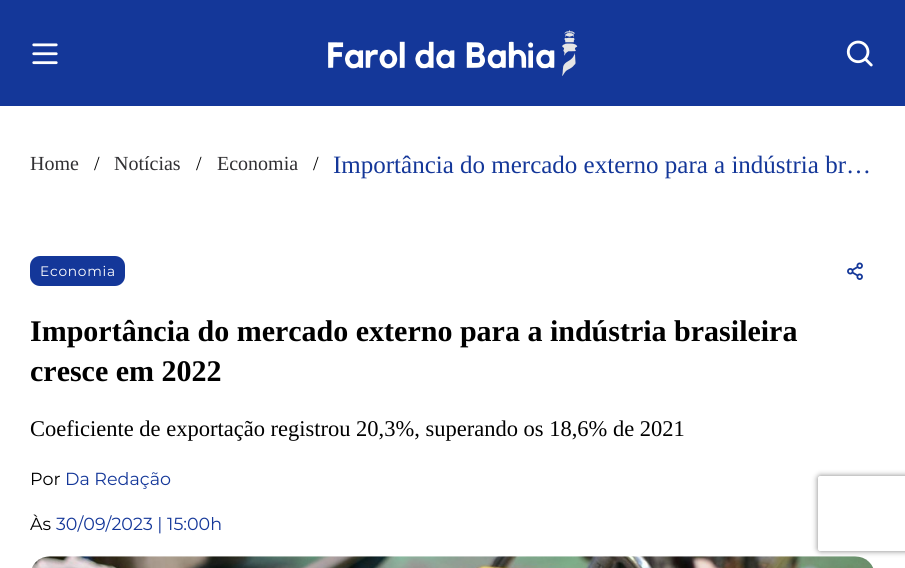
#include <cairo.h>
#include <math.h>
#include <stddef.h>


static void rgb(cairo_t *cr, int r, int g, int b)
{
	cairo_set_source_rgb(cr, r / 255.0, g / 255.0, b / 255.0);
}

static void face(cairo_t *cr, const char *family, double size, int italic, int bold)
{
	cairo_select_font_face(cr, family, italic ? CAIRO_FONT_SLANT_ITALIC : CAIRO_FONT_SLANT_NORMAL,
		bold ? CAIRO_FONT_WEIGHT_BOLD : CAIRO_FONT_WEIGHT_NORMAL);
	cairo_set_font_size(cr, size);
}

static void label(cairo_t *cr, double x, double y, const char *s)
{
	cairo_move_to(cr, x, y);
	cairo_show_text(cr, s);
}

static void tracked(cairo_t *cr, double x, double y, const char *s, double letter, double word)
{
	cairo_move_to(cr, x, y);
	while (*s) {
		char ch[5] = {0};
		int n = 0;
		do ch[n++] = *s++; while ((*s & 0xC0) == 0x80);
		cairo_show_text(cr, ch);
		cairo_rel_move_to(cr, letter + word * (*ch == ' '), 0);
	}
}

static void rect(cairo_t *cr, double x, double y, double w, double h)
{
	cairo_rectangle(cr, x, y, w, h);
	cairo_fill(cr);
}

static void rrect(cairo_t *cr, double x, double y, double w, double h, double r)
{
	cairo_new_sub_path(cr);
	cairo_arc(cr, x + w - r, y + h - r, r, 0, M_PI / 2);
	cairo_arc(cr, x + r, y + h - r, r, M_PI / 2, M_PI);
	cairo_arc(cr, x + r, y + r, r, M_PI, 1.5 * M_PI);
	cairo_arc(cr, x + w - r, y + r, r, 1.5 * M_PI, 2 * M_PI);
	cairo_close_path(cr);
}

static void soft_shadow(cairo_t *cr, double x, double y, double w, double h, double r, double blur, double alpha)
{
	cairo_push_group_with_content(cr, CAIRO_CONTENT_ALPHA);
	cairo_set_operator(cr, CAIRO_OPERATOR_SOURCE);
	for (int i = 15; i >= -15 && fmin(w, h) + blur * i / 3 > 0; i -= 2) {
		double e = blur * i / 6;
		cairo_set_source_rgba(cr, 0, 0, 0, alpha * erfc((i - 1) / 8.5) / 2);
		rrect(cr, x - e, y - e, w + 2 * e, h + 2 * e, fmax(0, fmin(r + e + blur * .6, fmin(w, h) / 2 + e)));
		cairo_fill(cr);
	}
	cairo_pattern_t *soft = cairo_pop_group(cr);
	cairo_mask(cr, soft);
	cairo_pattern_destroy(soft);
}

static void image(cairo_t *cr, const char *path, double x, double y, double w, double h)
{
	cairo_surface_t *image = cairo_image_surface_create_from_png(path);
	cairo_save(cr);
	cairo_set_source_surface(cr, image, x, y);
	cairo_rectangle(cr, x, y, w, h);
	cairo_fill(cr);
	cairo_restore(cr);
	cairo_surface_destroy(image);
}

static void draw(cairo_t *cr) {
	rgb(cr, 255, 255, 255);
	cairo_paint(cr);
	rgb(cr, 20, 55, 153);
	rect(cr, 0, 0, 905, 106);
	image(cr, "image0.png", 32, 43, 26, 22);
	image(cr, "image1.png", 328, 30, 250, 46);
	image(cr, "image2.png", 846, 40, 27, 27);
	face(cr, "Tinos", 20, 0, 0);
	rgb(cr, 49, 48, 51);
	label(cr, 30, 170, "Home");
	rgb(cr, 0, 0, 0);
	label(cr, 94, 170, "/");
	rgb(cr, 49, 48, 51);
	label(cr, 114, 170, "Notícias");
	rgb(cr, 0, 0, 0);
	label(cr, 196, 170, "/");
	rgb(cr, 49, 48, 51);
	label(cr, 217, 170, "Economia");
	rgb(cr, 0, 0, 0);
	label(cr, 313, 170, "/");
	face(cr, "Tinos", 25, 0, 0);
	rgb(cr, 20, 55, 153);
	label(cr, 333, 173, "Importância do mercado externo para a indústria br…");
	rrect(cr, 30, 256, 95, 30, 10);
	cairo_fill(cr);
	face(cr, "Montserrat", 13.75, 0, 0);
	rgb(cr, 255, 255, 255);
	tracked(cr, 40, 276, "Economia", 0.75, 0);
	image(cr, "image3.png", 847, 262, 16, 18);
	face(cr, "Tinos", 30, 0, 1);
	rgb(cr, 0, 0, 0);
	label(cr, 30, 341, "Importância do mercado externo para a indústria brasileira");
	label(cr, 30, 381, "cresce em 2022");
	face(cr, "Tinos", 22.5, 0, 0);
	label(cr, 30, 436, "Coeficiente de exportação registrou 20,3%, superando os 18,6% de 2021");
	face(cr, "Montserrat", 17.5, 0, 0);
	label(cr, 30, 485, "Por");
	rgb(cr, 20, 55, 153);
	label(cr, 65, 485, "Da Redação");
	rgb(cr, 0, 0, 0);
	label(cr, 30, 530, "Às");
	rgb(cr, 20, 55, 153);
	label(cr, 56, 530, "30/09/2023 | 15:00h");
	image(cr, "image4.png", 32, 556, 842, 12);
	cairo_save(cr);
	cairo_set_fill_rule(cr, CAIRO_FILL_RULE_EVEN_ODD);
	cairo_new_path(cr);
	cairo_move_to(cr, 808, 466);
	cairo_line_to(cr, 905, 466);
	cairo_line_to(cr, 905, 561);
	cairo_line_to(cr, 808, 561);
	cairo_close_path(cr);
	cairo_move_to(cr, 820.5, 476);
	cairo_line_to(cr, 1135.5, 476);
	cairo_curve_to(cr, 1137, 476, 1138, 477, 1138, 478.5);
	cairo_line_to(cr, 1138, 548.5);
	cairo_curve_to(cr, 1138, 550, 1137, 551, 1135.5, 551);
	cairo_line_to(cr, 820.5, 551);
	cairo_curve_to(cr, 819, 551, 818, 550, 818, 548.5);
	cairo_line_to(cr, 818, 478.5);
	cairo_curve_to(cr, 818, 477, 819, 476, 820.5, 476);
	cairo_close_path(cr);
	cairo_clip(cr);
	rgb(cr, 128, 128, 128);
	soft_shadow(cr, 818, 476, 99, 75, 2.5, 3, 1);
	cairo_restore(cr);
}

int main(void) {
	cairo_surface_t *surface = cairo_image_surface_create(CAIRO_FORMAT_RGB24, 905, 568);
	cairo_t *cr = cairo_create(surface);
	cairo_font_options_t *options = cairo_font_options_create();
	cairo_font_options_set_hint_metrics(options, CAIRO_HINT_METRICS_OFF);
	cairo_font_options_set_hint_style(options, CAIRO_HINT_STYLE_NONE);
	cairo_set_font_options(cr, options);
	cairo_set_miter_limit(cr, 4);
	draw(cr);
	cairo_surface_write_to_png(surface, "render.png");
	cairo_font_options_destroy(options);
	cairo_destroy(cr);
	cairo_surface_destroy(surface);
	return 0;
}
